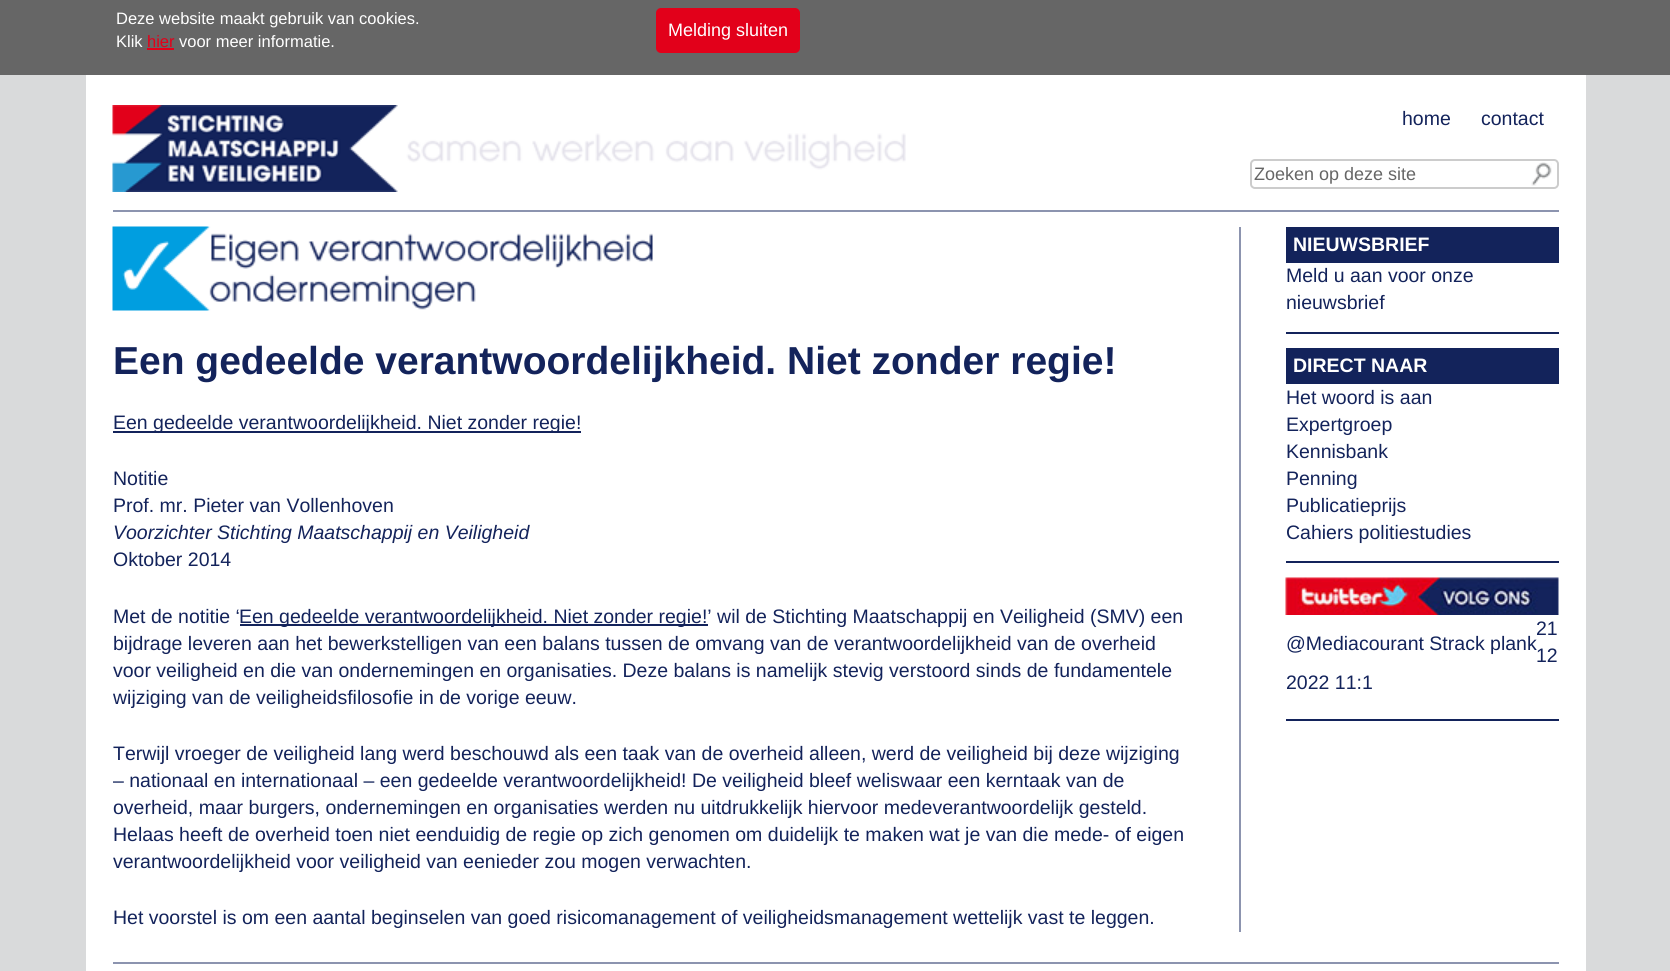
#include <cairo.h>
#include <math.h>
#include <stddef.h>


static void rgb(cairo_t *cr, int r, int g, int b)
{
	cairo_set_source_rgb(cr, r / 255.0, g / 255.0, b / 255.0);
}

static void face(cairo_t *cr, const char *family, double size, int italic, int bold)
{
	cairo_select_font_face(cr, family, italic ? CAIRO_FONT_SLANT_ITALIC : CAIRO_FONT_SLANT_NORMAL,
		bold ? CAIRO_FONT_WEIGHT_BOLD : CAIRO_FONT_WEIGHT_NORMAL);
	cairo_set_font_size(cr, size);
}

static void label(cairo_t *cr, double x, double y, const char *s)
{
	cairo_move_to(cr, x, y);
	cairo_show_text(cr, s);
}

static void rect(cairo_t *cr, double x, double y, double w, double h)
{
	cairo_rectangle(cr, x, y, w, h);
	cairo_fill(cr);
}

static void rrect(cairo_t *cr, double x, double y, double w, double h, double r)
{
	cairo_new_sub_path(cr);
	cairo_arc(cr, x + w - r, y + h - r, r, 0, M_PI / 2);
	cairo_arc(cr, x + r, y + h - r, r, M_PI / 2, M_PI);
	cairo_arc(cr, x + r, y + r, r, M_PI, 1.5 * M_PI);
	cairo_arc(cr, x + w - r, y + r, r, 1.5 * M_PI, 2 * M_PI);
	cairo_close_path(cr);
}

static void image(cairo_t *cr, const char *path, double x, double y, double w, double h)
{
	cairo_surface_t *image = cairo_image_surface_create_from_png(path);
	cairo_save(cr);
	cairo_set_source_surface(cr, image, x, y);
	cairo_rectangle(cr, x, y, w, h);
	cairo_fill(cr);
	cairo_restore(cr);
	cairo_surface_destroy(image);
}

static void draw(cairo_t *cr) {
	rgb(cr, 217, 218, 219);
	cairo_paint(cr);
	rgb(cr, 102, 102, 102);
	rect(cr, 0, 0, 1670, 75);
	face(cr, "Liberation Sans", 16.5, 0, 0);
	rgb(cr, 255, 255, 255);
	label(cr, 116, 24, "Deze website maakt gebruik van cookies.");
	label(cr, 116, 47, "Klik");
	rgb(cr, 226, 0, 26);
	label(cr, 147, 47, "hier");
	rect(cr, 147, 48, 27, 2);
	rgb(cr, 255, 255, 255);
	label(cr, 179, 47, "voor meer informatie.");
	rgb(cr, 226, 0, 26);
	rrect(cr, 656, 8, 144, 45, 5);
	cairo_fill(cr);
	face(cr, "Liberation Sans", 18, 0, 0);
	rgb(cr, 255, 255, 255);
	label(cr, 668, 36, "Melding sluiten");
	rect(cr, 86, 75, 1500, 896);
	rgb(cr, 140, 148, 175);
	rect(cr, 113, 210, 1446, 2);
	image(cr, "image0.png", 112, 105, 794, 87);
	face(cr, "Liberation Sans", 19.5, 0, 0);
	rgb(cr, 19, 35, 91);
	label(cr, 1402, 125, "home");
	label(cr, 1481, 125, "contact");
	image(cr, "image1.png", 1531, 162, 21, 24);
	rrect(cr, 1251, 160, 307, 28, 4);
	rgb(cr, 204, 204, 204);
	cairo_stroke(cr);
	face(cr, "Liberation Sans", 18, 0, 0);
	rgb(cr, 102, 102, 102);
	label(cr, 1254, 180, "Zoeken op deze site");
	rgb(cr, 140, 148, 175);
	rect(cr, 113, 962, 1446, 2);
	rect(cr, 1239, 227, 2, 705);
	image(cr, "image2.png", 112, 226, 541, 85);
	face(cr, "Liberation Sans", 39, 0, 1);
	rgb(cr, 19, 35, 91);
	label(cr, 113, 374, "Een gedeelde verantwoordelijkheid. Niet zonder regie!");
	rect(cr, 113, 431, 468, 2);
	face(cr, "Liberation Sans", 19.5, 0, 0);
	label(cr, 113, 429, "Een gedeelde verantwoordelijkheid. Niet zonder regie!");
	label(cr, 113, 485, "Notitie");
	label(cr, 113, 512, "Prof. mr. Pieter van Vollenhoven");
	face(cr, "Liberation Sans", 19.5, 1, 0);
	label(cr, 113, 539, "Voorzichter Stichting Maatschappij en Veiligheid");
	face(cr, "Liberation Sans", 19.5, 0, 0);
	label(cr, 113, 566, "Oktober 2014");
	label(cr, 113, 623, "Met de notitie ‘");
	rect(cr, 240, 624, 468, 2);
	label(cr, 239, 623, "Een gedeelde verantwoordelijkheid. Niet zonder regie!’ wil de Stichting Maatschappij en Veiligheid (SMV) een");
	label(cr, 113, 650, "bijdrage leveren aan het bewerkstelligen van een balans tussen de omvang van de verantwoordelijkheid van de overheid");
	label(cr, 113, 677, "voor veiligheid en die van ondernemingen en organisaties. Deze balans is namelijk stevig verstoord sinds de fundamentele");
	label(cr, 113, 704, "wijziging van de veiligheidsfilosofie in de vorige eeuw.");
	label(cr, 113, 760, "Terwijl vroeger de veiligheid lang werd beschouwd als een taak van de overheid alleen, werd de veiligheid bij deze wijziging");
	label(cr, 113, 787, "– nationaal en internationaal – een gedeelde verantwoordelijkheid! De veiligheid bleef weliswaar een kerntaak van de");
	label(cr, 113, 814, "overheid, maar burgers, ondernemingen en organisaties werden nu uitdrukkelijk hiervoor medeverantwoordelijk gesteld.");
	label(cr, 113, 841, "Helaas heeft de overheid toen niet eenduidig de regie op zich genomen om duidelijk te maken wat je van die mede- of eigen");
	label(cr, 113, 868, "verantwoordelijkheid voor veiligheid van eenieder zou mogen verwachten.");
	label(cr, 113, 924, "Het voorstel is om een aantal beginselen van goed risicomanagement of veiligheidsmanagement wettelijk vast te leggen.");
	rect(cr, 1286, 332, 273, 2);
	rect(cr, 1286, 227, 273, 36);
	face(cr, "Liberation Sans", 19.5, 0, 1);
	rgb(cr, 255, 255, 255);
	label(cr, 1293, 251, "NIEUWSBRIEF");
	face(cr, "Liberation Sans", 19.5, 0, 0);
	rgb(cr, 19, 35, 91);
	label(cr, 1286, 282, "Meld u aan voor onze");
	label(cr, 1286, 309, "nieuwsbrief");
	rect(cr, 1286, 561, 273, 2);
	rect(cr, 1286, 348, 273, 36);
	face(cr, "Liberation Sans", 19.5, 0, 1);
	rgb(cr, 255, 255, 255);
	label(cr, 1293, 372, "DIRECT NAAR");
	face(cr, "Liberation Sans", 19.5, 0, 0);
	rgb(cr, 19, 35, 91);
	label(cr, 1286, 404, "Het woord is aan");
	label(cr, 1286, 431, "Expertgroep");
	label(cr, 1286, 458, "Kennisbank");
	label(cr, 1286, 485, "Penning");
	label(cr, 1286, 512, "Publicatieprijs");
	label(cr, 1286, 539, "Cahiers politiestudies");
	rect(cr, 1286, 719, 273, 2);
	image(cr, "image3.png", 1285, 577, 274, 38);
	label(cr, 1536, 635, "21");
	label(cr, 1536, 662, "12");
	label(cr, 1286, 689, "2022 11:1");
	label(cr, 1286, 650, "@Mediacourant Strack plank");
}

int main(void) {
	cairo_surface_t *surface = cairo_image_surface_create(CAIRO_FORMAT_RGB24, 1670, 971);
	cairo_t *cr = cairo_create(surface);
	cairo_font_options_t *options = cairo_font_options_create();
	cairo_font_options_set_hint_metrics(options, CAIRO_HINT_METRICS_OFF);
	cairo_font_options_set_hint_style(options, CAIRO_HINT_STYLE_NONE);
	cairo_set_font_options(cr, options);
	cairo_set_miter_limit(cr, 4);
	draw(cr);
	cairo_surface_write_to_png(surface, "render.png");
	cairo_font_options_destroy(options);
	cairo_destroy(cr);
	cairo_surface_destroy(surface);
	return 0;
}
